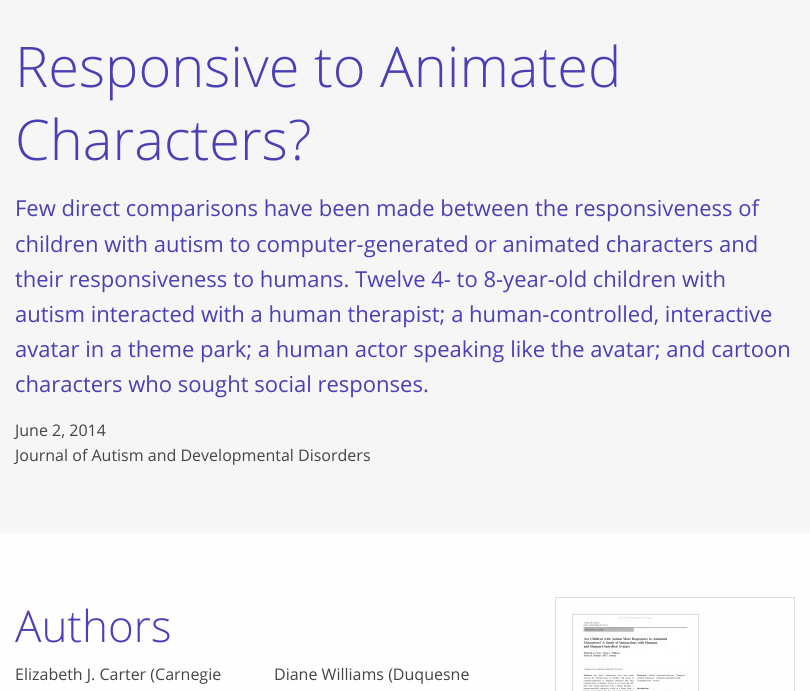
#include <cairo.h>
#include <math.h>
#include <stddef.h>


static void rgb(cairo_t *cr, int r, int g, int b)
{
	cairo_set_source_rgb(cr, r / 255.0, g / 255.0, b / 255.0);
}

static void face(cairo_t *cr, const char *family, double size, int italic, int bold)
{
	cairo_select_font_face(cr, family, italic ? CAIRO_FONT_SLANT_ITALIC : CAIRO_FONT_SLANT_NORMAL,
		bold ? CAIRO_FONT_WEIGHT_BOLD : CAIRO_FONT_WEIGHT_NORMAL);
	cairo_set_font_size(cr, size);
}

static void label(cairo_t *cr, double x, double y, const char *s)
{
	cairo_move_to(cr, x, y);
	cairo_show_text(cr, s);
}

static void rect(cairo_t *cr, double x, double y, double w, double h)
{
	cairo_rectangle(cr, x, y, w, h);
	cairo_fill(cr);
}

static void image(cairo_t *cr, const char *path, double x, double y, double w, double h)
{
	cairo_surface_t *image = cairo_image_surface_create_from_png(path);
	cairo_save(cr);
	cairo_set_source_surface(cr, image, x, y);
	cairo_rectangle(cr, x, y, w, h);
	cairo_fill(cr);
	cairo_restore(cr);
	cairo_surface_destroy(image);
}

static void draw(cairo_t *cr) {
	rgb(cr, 254, 254, 254);
	cairo_paint(cr);
	rgb(cr, 246, 246, 246);
	rect(cr, 0, 0, 810, 533);
	face(cr, "Open Sans Light", 56, 0, 0);
	rgb(cr, 74, 63, 180);
	label(cr, 15, 87, "Responsive to Animated");
	label(cr, 15, 160, "Characters?");
	face(cr, "Open Sans", 22, 0, 0);
	label(cr, 15, 216, "Few direct comparisons have been made between the responsiveness of");
	label(cr, 15, 252, "children with autism to computer-generated or animated characters and");
	label(cr, 15, 287, "their responsiveness to humans. Twelve 4- to 8-year-old children with");
	label(cr, 15, 322, "autism interacted with a human therapist; a human-controlled, interactive");
	label(cr, 15, 357, "avatar in a theme park; a human actor speaking like the avatar; and cartoon");
	label(cr, 15, 392, "characters who sought social responses.");
	face(cr, "Open Sans", 16, 0, 0);
	rgb(cr, 68, 68, 68);
	label(cr, 15, 436, "June 2, 2014");
	label(cr, 15, 461, "Journal of Autism and Developmental Disorders");
	face(cr, "Open Sans Light", 44, 0, 0);
	rgb(cr, 74, 63, 180);
	label(cr, 15, 642, "Authors");
	face(cr, "Open Sans", 16, 0, 0);
	rgb(cr, 68, 68, 68);
	label(cr, 15, 680, "Elizabeth J. Carter (Carnegie");
	label(cr, 274, 680, "Diane Williams (Duquesne");
	cairo_rectangle(cr, 555.5, 597.5, 239, 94);
	rgb(cr, 221, 221, 221);
	cairo_set_line_width(cr, 1);
	cairo_stroke(cr);
	cairo_rectangle(cr, 572.5, 614.5, 126, 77);
	cairo_stroke(cr);
	image(cr, "image0.png", 581, 616, 108, 75);
}

int main(void) {
	cairo_surface_t *surface = cairo_image_surface_create(CAIRO_FORMAT_RGB24, 810, 691);
	cairo_t *cr = cairo_create(surface);
	cairo_font_options_t *options = cairo_font_options_create();
	cairo_font_options_set_hint_metrics(options, CAIRO_HINT_METRICS_OFF);
	cairo_font_options_set_hint_style(options, CAIRO_HINT_STYLE_NONE);
	cairo_set_font_options(cr, options);
	cairo_set_miter_limit(cr, 4);
	draw(cr);
	cairo_surface_write_to_png(surface, "render.png");
	cairo_font_options_destroy(options);
	cairo_destroy(cr);
	cairo_surface_destroy(surface);
	return 0;
}
